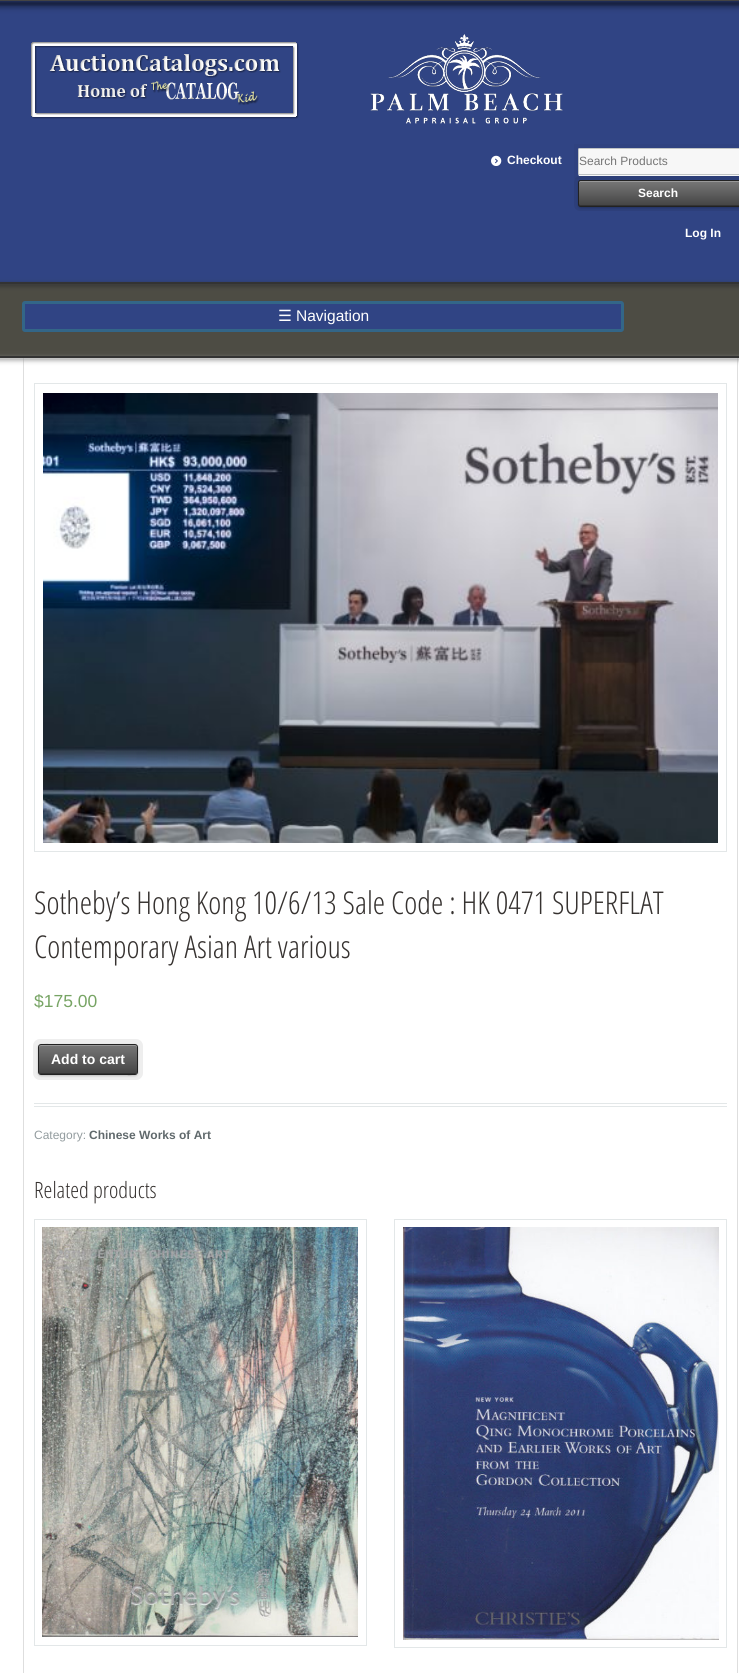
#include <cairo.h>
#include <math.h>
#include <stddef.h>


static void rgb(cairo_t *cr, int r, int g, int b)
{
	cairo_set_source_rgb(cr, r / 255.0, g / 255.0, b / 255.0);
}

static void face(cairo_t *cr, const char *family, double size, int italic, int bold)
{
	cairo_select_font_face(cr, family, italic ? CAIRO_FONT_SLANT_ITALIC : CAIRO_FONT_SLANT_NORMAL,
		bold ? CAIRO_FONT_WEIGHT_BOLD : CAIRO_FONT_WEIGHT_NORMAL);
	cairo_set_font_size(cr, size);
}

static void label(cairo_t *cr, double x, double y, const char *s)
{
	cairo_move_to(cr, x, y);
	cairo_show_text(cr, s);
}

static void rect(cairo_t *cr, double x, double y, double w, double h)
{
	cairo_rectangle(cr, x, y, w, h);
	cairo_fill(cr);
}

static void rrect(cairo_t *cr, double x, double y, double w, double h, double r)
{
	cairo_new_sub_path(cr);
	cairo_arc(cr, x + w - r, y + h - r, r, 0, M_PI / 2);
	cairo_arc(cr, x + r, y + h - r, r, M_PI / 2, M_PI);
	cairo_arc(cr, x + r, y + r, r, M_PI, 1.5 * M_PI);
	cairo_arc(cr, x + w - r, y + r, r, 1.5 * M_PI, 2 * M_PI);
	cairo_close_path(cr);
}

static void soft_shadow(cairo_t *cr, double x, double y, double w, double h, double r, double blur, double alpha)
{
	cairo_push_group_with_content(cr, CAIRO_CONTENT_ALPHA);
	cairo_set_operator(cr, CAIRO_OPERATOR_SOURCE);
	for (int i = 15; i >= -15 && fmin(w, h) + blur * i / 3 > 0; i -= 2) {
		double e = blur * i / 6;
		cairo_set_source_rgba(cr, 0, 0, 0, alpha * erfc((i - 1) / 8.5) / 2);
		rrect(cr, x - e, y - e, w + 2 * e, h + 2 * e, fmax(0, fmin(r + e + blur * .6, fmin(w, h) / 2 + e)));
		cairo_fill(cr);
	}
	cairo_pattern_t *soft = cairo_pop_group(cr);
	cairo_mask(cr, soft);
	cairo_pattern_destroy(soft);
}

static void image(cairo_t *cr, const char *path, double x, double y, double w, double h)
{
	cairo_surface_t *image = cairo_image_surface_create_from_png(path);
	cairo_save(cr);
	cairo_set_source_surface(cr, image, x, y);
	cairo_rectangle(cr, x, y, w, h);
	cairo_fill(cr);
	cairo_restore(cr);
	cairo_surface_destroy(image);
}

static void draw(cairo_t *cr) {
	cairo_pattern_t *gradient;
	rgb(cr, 255, 255, 255);
	cairo_paint(cr);
	rgb(cr, 48, 68, 132);
	rect(cr, 0, 1, 739, 281);
	rgb(cr, 0, 0, 0);
	soft_shadow(cr, -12, 3, 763, 1, 0, 4, 1);
	rgb(cr, 68, 68, 68);
	rect(cr, 0, 0, 739, 1);
	image(cr, "image0.png", 31, 42, 268, 77);
	image(cr, "image1.png", 370, 34, 193, 90);
	image(cr, "image2.png", 491, 155, 11, 11);
	face(cr, "Liberation Sans", 12, 0, 1);
	rgb(cr, 255, 255, 255);
	label(cr, 507, 164, "Checkout");
	cairo_new_path(cr);
	cairo_move_to(cr, 578, 174);
	cairo_line_to(cr, 579, 176);
	cairo_line_to(cr, 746, 176);
	cairo_curve_to(cr, 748, 176, 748, 175, 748, 174);
	cairo_curve_to(cr, 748, 174, 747, 175, 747, 175);
	cairo_line_to(cr, 579, 175);
	cairo_curve_to(cr, 579, 175, 578, 174, 578, 174);
	cairo_close_path(cr);
	cairo_fill(cr);
	cairo_rectangle(cr, 576, 146, 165, 31);
	cairo_set_source_rgba(cr, 0, 0, 0, 0.03);
	cairo_set_line_width(cr, 4);
	cairo_stroke(cr);
	rgb(cr, 247, 247, 247);
	rrect(cr, 578.5, 148.5, 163, 26, 1);
	cairo_fill_preserve(cr);
	rgb(cr, 191, 195, 196);
	cairo_set_line_width(cr, 1);
	cairo_stroke(cr);
	face(cr, "Liberation Sans", 12, 0, 0);
	rgb(cr, 117, 117, 117);
	label(cr, 579, 165, "Search Products");
	rgb(cr, 0, 0, 0);
	soft_shadow(cr, 578, 181, 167, 27, 2.5, 1, 0.2);
	rrect(cr, 576, 178, 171, 31, 4);
	cairo_set_source_rgba(cr, 0, 0, 0, 0.07);
	cairo_set_line_width(cr, 4);
	cairo_stroke(cr);
	gradient = cairo_pattern_create_linear(663, 181, 663, 206);
	cairo_pattern_add_color_stop_rgba(gradient, 0, 0.467, 0.467, 0.467, 1);
	cairo_pattern_add_color_stop_rgba(gradient, 1, 0.267, 0.267, 0.267, 1);
	cairo_set_source(cr, gradient);
	cairo_pattern_destroy(gradient);
	rrect(cr, 579, 181, 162, 25, 1.5);
	cairo_fill(cr);
	rgb(cr, 51, 51, 51);
	cairo_new_path(cr);
	cairo_move_to(cr, 579, 204);
	cairo_curve_to(cr, 579, 205, 579, 206, 580, 206);
	cairo_line_to(cr, 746, 206);
	cairo_curve_to(cr, 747, 206, 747, 205, 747, 204);
	cairo_line_to(cr, 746, 205);
	cairo_line_to(cr, 580, 205);
	cairo_close_path(cr);
	cairo_fill(cr);
	rgb(cr, 153, 153, 153);
	cairo_new_path(cr);
	cairo_move_to(cr, 580, 182);
	cairo_line_to(cr, 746, 182);
	cairo_line_to(cr, 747, 183);
	cairo_curve_to(cr, 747, 182, 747, 181, 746, 181);
	cairo_line_to(cr, 580, 181);
	cairo_curve_to(cr, 579, 181, 579, 182, 579, 183);
	cairo_close_path(cr);
	cairo_fill(cr);
	rrect(cr, 578.5, 180.5, 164, 26, 2);
	rgb(cr, 34, 34, 34);
	cairo_set_line_width(cr, 1);
	cairo_stroke(cr);
	face(cr, "Liberation Sans", 12, 0, 1);
	rgb(cr, 255, 255, 255);
	label(cr, 638, 197, "Search");
	label(cr, 685, 237, "Log In");
	rgb(cr, 77, 76, 68);
	rect(cr, 0, 284, 739, 72);
	rgb(cr, 51, 51, 51);
	soft_shadow(cr, -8, 284, 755, 2, 0, 2.5, 1);
	rgb(cr, 51, 51, 51);
	rect(cr, 0, 282, 739, 2);
	rgb(cr, 48, 68, 132);
	rrect(cr, 23.5, 302.5, 599, 28, 1.5);
	cairo_fill_preserve(cr);
	rgb(cr, 51, 102, 136);
	cairo_set_line_width(cr, 3);
	cairo_stroke(cr);
	face(cr, "DejaVu Sans", 15.5, 0, 0);
	rgb(cr, 255, 255, 255);
	label(cr, 278, 321, "☰");
	face(cr, "Liberation Sans", 15.5, 0, 0);
	label(cr, 296, 321, "Navigation");
	rgb(cr, 222, 222, 222);
	rect(cr, 737, 358, 1, 1315);
	rect(cr, 23, 358, 1, 1315);
	rgb(cr, 153, 153, 153);
	soft_shadow(cr, -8, 358, 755, 2, 0, 2.5, 1);
	rgb(cr, 51, 51, 51);
	rect(cr, 0, 356, 739, 2);
	cairo_rectangle(cr, 34.5, 383.5, 692, 468);
	rgb(cr, 227, 231, 232);
	cairo_set_line_width(cr, 1);
	cairo_stroke(cr);
	image(cr, "image3.png", 43, 393, 675, 450);
	face(cr, "Open Sans Condensed Light", 31.4, 0, 0);
	rgb(cr, 54, 50, 48);
	label(cr, 34, 914, "Sotheby’s Hong Kong 10/6/13 Sale Code : HK 0471 SUPERFLAT");
	label(cr, 34, 958, "Contemporary Asian Art various");
	face(cr, "Liberation Sans", 17.5, 0, 0);
	rgb(cr, 119, 164, 100);
	label(cr, 34, 1007, "$175.00");
	rgb(cr, 0, 0, 0);
	soft_shadow(cr, 38, 1045, 100, 31, 3, 1, 0.2);
	rrect(cr, 35.5, 1041.5, 105, 36, 4.5);
	cairo_set_source_rgba(cr, 0, 0, 0, 0.07);
	cairo_set_line_width(cr, 5);
	cairo_stroke(cr);
	gradient = cairo_pattern_create_linear(88, 1045, 88, 1074);
	cairo_pattern_add_color_stop_rgba(gradient, 0, 0.467, 0.467, 0.467, 1);
	cairo_pattern_add_color_stop_rgba(gradient, 1, 0.267, 0.267, 0.267, 1);
	cairo_set_source(cr, gradient);
	cairo_pattern_destroy(gradient);
	rrect(cr, 39, 1045, 98, 29, 2);
	cairo_fill(cr);
	rgb(cr, 51, 51, 51);
	cairo_new_path(cr);
	cairo_move_to(cr, 39, 1071);
	cairo_curve_to(cr, 39, 1072, 39, 1074, 41, 1074);
	cairo_line_to(cr, 119, 1074);
	cairo_curve_to(cr, 121, 1074, 137, 1078, 137, 1071);
	cairo_curve_to(cr, 137, 1072, 136, 1073, 135, 1073);
	cairo_line_to(cr, 41, 1073);
	cairo_curve_to(cr, 40, 1073, 39, 1072, 39, 1071);
	cairo_close_path(cr);
	cairo_fill(cr);
	rgb(cr, 153, 153, 153);
	cairo_new_path(cr);
	cairo_move_to(cr, 41, 1046);
	cairo_line_to(cr, 135, 1046);
	cairo_curve_to(cr, 136, 1046, 137, 1047, 137, 1048);
	cairo_curve_to(cr, 137, 1047, 137, 1045, 135, 1045);
	cairo_line_to(cr, 57, 1045);
	cairo_curve_to(cr, 55, 1045, 39, 1041, 39, 1048);
	cairo_curve_to(cr, 39, 1047, 40, 1046, 41, 1046);
	cairo_close_path(cr);
	cairo_fill(cr);
	rrect(cr, 38.5, 1044.5, 99, 30, 2.5);
	rgb(cr, 34, 34, 34);
	cairo_set_line_width(cr, 1);
	cairo_stroke(cr);
	face(cr, "Liberation Sans", 14, 0, 1);
	rgb(cr, 255, 255, 255);
	label(cr, 51, 1064, "Add to cart");
	rgb(cr, 227, 231, 232);
	rect(cr, 34, 1103, 693, 1);
	rect(cr, 34, 1106, 693, 1);
	face(cr, "Liberation Sans", 12, 0, 0);
	rgb(cr, 147, 156, 159);
	label(cr, 34, 1139, "Category:");
	face(cr, "Liberation Sans", 12, 0, 1);
	rgb(cr, 96, 105, 108);
	label(cr, 89, 1139, "Chinese Works of Art");
	face(cr, "Open Sans Condensed Light", 22.5, 0, 0);
	rgb(cr, 54, 50, 48);
	label(cr, 34, 1198, "Related products");
	cairo_rectangle(cr, 34.5, 1219.5, 332, 426);
	rgb(cr, 227, 231, 232);
	cairo_stroke(cr);
	image(cr, "image4.png", 42, 1227, 316, 410);
	cairo_rectangle(cr, 394.5, 1219.5, 332, 428);
	cairo_stroke(cr);
	image(cr, "image5.png", 403, 1227, 316, 413);
}

int main(void) {
	cairo_surface_t *surface = cairo_image_surface_create(CAIRO_FORMAT_RGB24, 739, 1673);
	cairo_t *cr = cairo_create(surface);
	cairo_font_options_t *options = cairo_font_options_create();
	cairo_font_options_set_hint_metrics(options, CAIRO_HINT_METRICS_OFF);
	cairo_font_options_set_hint_style(options, CAIRO_HINT_STYLE_NONE);
	cairo_set_font_options(cr, options);
	cairo_set_miter_limit(cr, 4);
	draw(cr);
	cairo_surface_write_to_png(surface, "render.png");
	cairo_font_options_destroy(options);
	cairo_destroy(cr);
	cairo_surface_destroy(surface);
	return 0;
}
